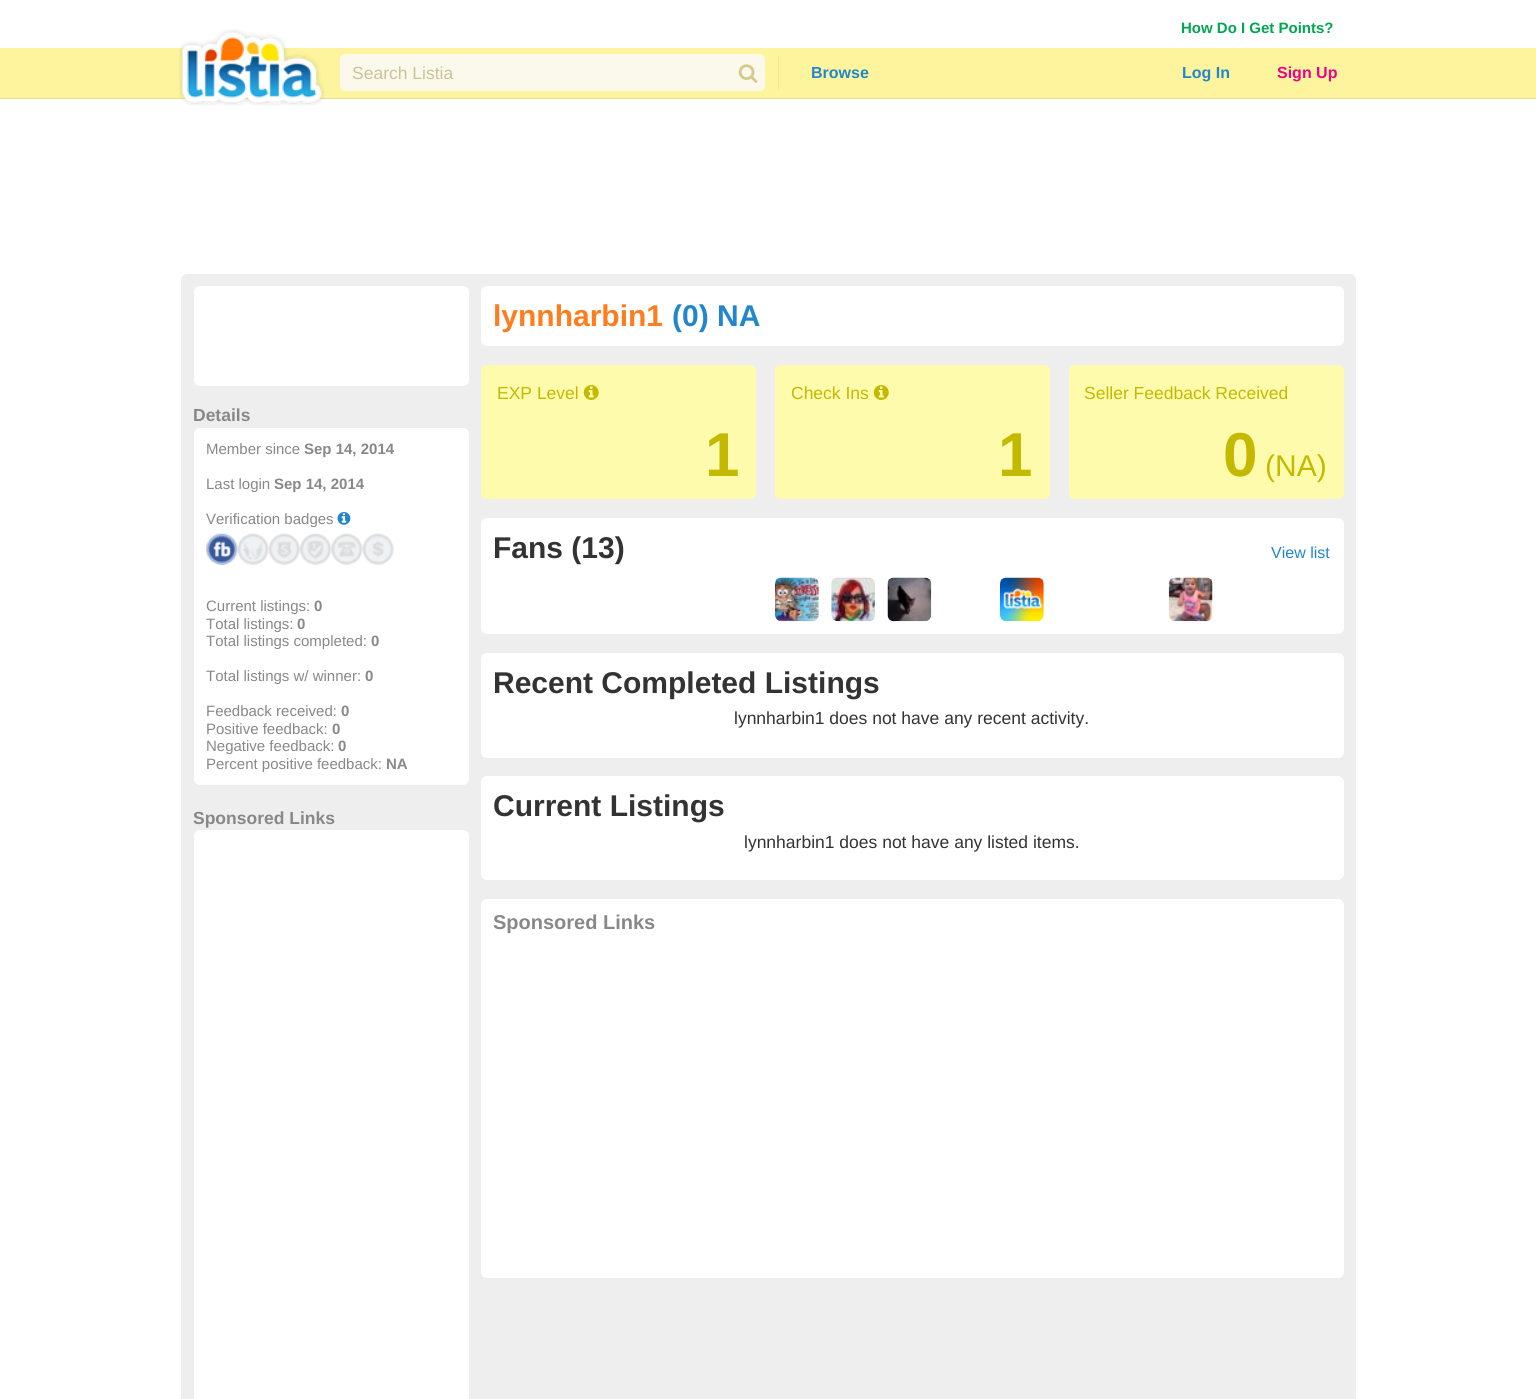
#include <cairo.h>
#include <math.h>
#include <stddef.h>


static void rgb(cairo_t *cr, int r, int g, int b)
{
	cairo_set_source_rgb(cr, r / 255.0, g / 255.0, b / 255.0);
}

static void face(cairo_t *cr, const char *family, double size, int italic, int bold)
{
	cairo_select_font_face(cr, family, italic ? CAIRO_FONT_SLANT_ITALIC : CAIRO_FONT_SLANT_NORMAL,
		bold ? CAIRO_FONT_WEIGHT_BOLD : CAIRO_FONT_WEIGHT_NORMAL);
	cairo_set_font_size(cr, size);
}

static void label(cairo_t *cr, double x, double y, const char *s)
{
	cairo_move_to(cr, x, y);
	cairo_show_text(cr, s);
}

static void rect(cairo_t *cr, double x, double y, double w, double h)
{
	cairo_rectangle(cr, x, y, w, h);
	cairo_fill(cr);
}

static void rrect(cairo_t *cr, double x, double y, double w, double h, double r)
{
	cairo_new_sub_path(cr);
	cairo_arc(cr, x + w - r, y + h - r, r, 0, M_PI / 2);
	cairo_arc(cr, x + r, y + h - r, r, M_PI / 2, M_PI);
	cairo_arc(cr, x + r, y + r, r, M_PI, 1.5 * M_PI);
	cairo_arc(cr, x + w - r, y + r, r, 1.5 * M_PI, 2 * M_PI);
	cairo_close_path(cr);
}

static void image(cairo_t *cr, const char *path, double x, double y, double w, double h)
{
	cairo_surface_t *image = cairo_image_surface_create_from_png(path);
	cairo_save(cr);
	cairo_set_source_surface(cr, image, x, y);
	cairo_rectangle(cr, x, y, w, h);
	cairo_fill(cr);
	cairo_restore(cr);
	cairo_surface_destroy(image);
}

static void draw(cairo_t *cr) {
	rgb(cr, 255, 255, 255);
	cairo_paint(cr);
	face(cr, "Liberation Sans", 15, 0, 1);
	rgb(cr, 0, 166, 81);
	label(cr, 1181, 33, "How Do I Get Points?");
	rgb(cr, 253, 244, 157);
	rect(cr, 0, 48, 1536, 50);
	rgb(cr, 231, 223, 143);
	rect(cr, 0, 98, 1536, 1);
	image(cr, "image0.png", 179, 29, 145, 77);
	rgb(cr, 251, 249, 236);
	rrect(cr, 340, 54, 425, 37, 5);
	cairo_fill(cr);
	face(cr, "Liberation Sans", 17.5, 0, 0);
	rgb(cr, 202, 195, 152);
	label(cr, 352, 79, "Search Listia");
	image(cr, "image1.png", 738, 64, 20, 19);
	rgb(cr, 239, 230, 136);
	rect(cr, 778, 56, 1, 33);
	face(cr, "Liberation Sans", 16, 0, 1);
	rgb(cr, 35, 134, 204);
	label(cr, 811, 78, "Browse");
	label(cr, 1182, 78, "Log In");
	rgb(cr, 236, 0, 140);
	label(cr, 1277, 78, "Sign Up");
	rgb(cr, 238, 238, 238);
	rrect(cr, 181, 274, 1175, 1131, 6);
	cairo_fill(cr);
	rgb(cr, 255, 255, 255);
	rrect(cr, 194, 286, 275, 100, 6);
	cairo_fill(cr);
	face(cr, "Liberation Sans", 17.5, 0, 1);
	rgb(cr, 136, 136, 136);
	label(cr, 193, 421, "Details");
	rgb(cr, 255, 255, 255);
	rrect(cr, 194, 428, 275, 357, 6);
	cairo_fill(cr);
	face(cr, "Liberation Sans", 15, 0, 0);
	rgb(cr, 136, 136, 136);
	label(cr, 206, 454, "Member since");
	face(cr, "Liberation Sans", 15, 0, 1);
	label(cr, 304, 454, "Sep 14, 2014");
	face(cr, "Liberation Sans", 15, 0, 0);
	label(cr, 206, 489, "Last login");
	face(cr, "Liberation Sans", 15, 0, 1);
	label(cr, 274, 489, "Sep 14, 2014");
	face(cr, "Liberation Sans", 15, 0, 0);
	label(cr, 206, 524, "Verification badges");
	image(cr, "image2.png", 337, 512, 14, 13);
	image(cr, "image3.png", 206, 533, 32, 32);
	image(cr, "image4.png", 237, 533, 32, 32);
	image(cr, "image5.png", 268, 533, 32, 32);
	image(cr, "image6.png", 300, 533, 32, 32);
	image(cr, "image7.png", 331, 533, 32, 32);
	image(cr, "image8.png", 362, 533, 32, 32);
	label(cr, 206, 611, "Current listings:");
	face(cr, "Liberation Sans", 15, 0, 1);
	label(cr, 314, 611, "0");
	face(cr, "Liberation Sans", 15, 0, 0);
	label(cr, 206, 629, "Total listings:");
	face(cr, "Liberation Sans", 15, 0, 1);
	label(cr, 297, 629, "0");
	face(cr, "Liberation Sans", 15, 0, 0);
	label(cr, 206, 646, "Total listings completed:");
	face(cr, "Liberation Sans", 15, 0, 1);
	label(cr, 371, 646, "0");
	face(cr, "Liberation Sans", 15, 0, 0);
	label(cr, 206, 681, "Total listings w/ winner:");
	face(cr, "Liberation Sans", 15, 0, 1);
	label(cr, 365, 681, "0");
	face(cr, "Liberation Sans", 15, 0, 0);
	label(cr, 206, 716, "Feedback received:");
	face(cr, "Liberation Sans", 15, 0, 1);
	label(cr, 341, 716, "0");
	face(cr, "Liberation Sans", 15, 0, 0);
	label(cr, 206, 734, "Positive feedback:");
	face(cr, "Liberation Sans", 15, 0, 1);
	label(cr, 332, 734, "0");
	face(cr, "Liberation Sans", 15, 0, 0);
	label(cr, 206, 751, "Negative feedback:");
	face(cr, "Liberation Sans", 15, 0, 1);
	label(cr, 338, 751, "0");
	face(cr, "Liberation Sans", 15, 0, 0);
	label(cr, 206, 769, "Percent positive feedback:");
	face(cr, "Liberation Sans", 15, 0, 1);
	label(cr, 386, 769, "NA");
	face(cr, "Liberation Sans", 17.5, 0, 1);
	label(cr, 193, 824, "Sponsored Links");
	rgb(cr, 255, 255, 255);
	rrect(cr, 194, 830, 275, 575, 6);
	cairo_fill(cr);
	rrect(cr, 481, 286, 863, 60, 6);
	cairo_fill(cr);
	face(cr, "Liberation Sans", 30, 0, 1);
	rgb(cr, 255, 125, 30);
	label(cr, 493, 326, "lynnharbin1");
	rgb(cr, 35, 134, 204);
	label(cr, 672, 326, "(0) NA");
	rgb(cr, 255, 251, 173);
	rrect(cr, 481, 365, 275, 134, 6);
	cairo_fill(cr);
	face(cr, "Liberation Sans", 17.5, 0, 0);
	rgb(cr, 195, 185, 0);
	label(cr, 497, 399, "EXP Level");
	image(cr, "image9.png", 583, 385, 16, 15);
	face(cr, "Liberation Sans", 62, 0, 1);
	label(cr, 705, 476, "1");
	rgb(cr, 255, 251, 173);
	rrect(cr, 775, 365, 275, 134, 6);
	cairo_fill(cr);
	face(cr, "Liberation Sans", 17.5, 0, 0);
	rgb(cr, 195, 185, 0);
	label(cr, 791, 399, "Check Ins");
	image(cr, "image9.png", 873, 385, 16, 15);
	face(cr, "Liberation Sans", 62, 0, 1);
	label(cr, 998, 476, "1");
	rgb(cr, 255, 251, 173);
	rrect(cr, 1069, 365, 275, 134, 6);
	cairo_fill(cr);
	face(cr, "Liberation Sans", 17.5, 0, 0);
	rgb(cr, 195, 185, 0);
	label(cr, 1084, 399, "Seller Feedback Received");
	face(cr, "Liberation Sans", 62, 0, 1);
	label(cr, 1223, 476, "0");
	face(cr, "Liberation Sans", 30, 0, 0);
	label(cr, 1265, 476, "(NA)");
	rgb(cr, 255, 255, 255);
	rrect(cr, 481, 518, 863, 116, 6);
	cairo_fill(cr);
	face(cr, "Liberation Sans", 30, 0, 1);
	rgb(cr, 51, 51, 51);
	label(cr, 493, 558, "Fans (13)");
	face(cr, "Liberation Sans", 16, 0, 0);
	rgb(cr, 35, 134, 204);
	label(cr, 1271, 558, "View list");
	image(cr, "image10.png", 775, 577, 44, 45);
	image(cr, "image11.png", 831, 577, 44, 45);
	image(cr, "image12.png", 887, 577, 45, 45);
	image(cr, "image13.png", 1000, 577, 44, 45);
	image(cr, "image14.png", 1168, 577, 45, 45);
	rgb(cr, 255, 255, 255);
	rrect(cr, 481, 653, 863, 105, 6);
	cairo_fill(cr);
	face(cr, "Liberation Sans", 30, 0, 1);
	rgb(cr, 51, 51, 51);
	label(cr, 493, 693, "Recent Completed Listings");
	face(cr, "Liberation Sans", 17.5, 0, 0);
	label(cr, 734, 724, "lynnharbin1 does not have any recent activity.");
	rgb(cr, 255, 255, 255);
	rrect(cr, 481, 776, 863, 104, 6);
	cairo_fill(cr);
	face(cr, "Liberation Sans", 30, 0, 1);
	rgb(cr, 51, 51, 51);
	label(cr, 493, 816, "Current Listings");
	face(cr, "Liberation Sans", 17.5, 0, 0);
	label(cr, 744, 848, "lynnharbin1 does not have any listed items.");
	rgb(cr, 255, 255, 255);
	rrect(cr, 481, 899, 863, 379, 6);
	cairo_fill(cr);
	face(cr, "Liberation Sans", 20, 0, 1);
	rgb(cr, 136, 136, 136);
	label(cr, 493, 929, "Sponsored Links");
}

int main(void) {
	cairo_surface_t *surface = cairo_image_surface_create(CAIRO_FORMAT_RGB24, 1536, 1399);
	cairo_t *cr = cairo_create(surface);
	cairo_font_options_t *options = cairo_font_options_create();
	cairo_font_options_set_hint_metrics(options, CAIRO_HINT_METRICS_OFF);
	cairo_font_options_set_hint_style(options, CAIRO_HINT_STYLE_NONE);
	cairo_set_font_options(cr, options);
	cairo_set_miter_limit(cr, 4);
	draw(cr);
	cairo_surface_write_to_png(surface, "render.png");
	cairo_font_options_destroy(options);
	cairo_destroy(cr);
	cairo_surface_destroy(surface);
	return 0;
}
